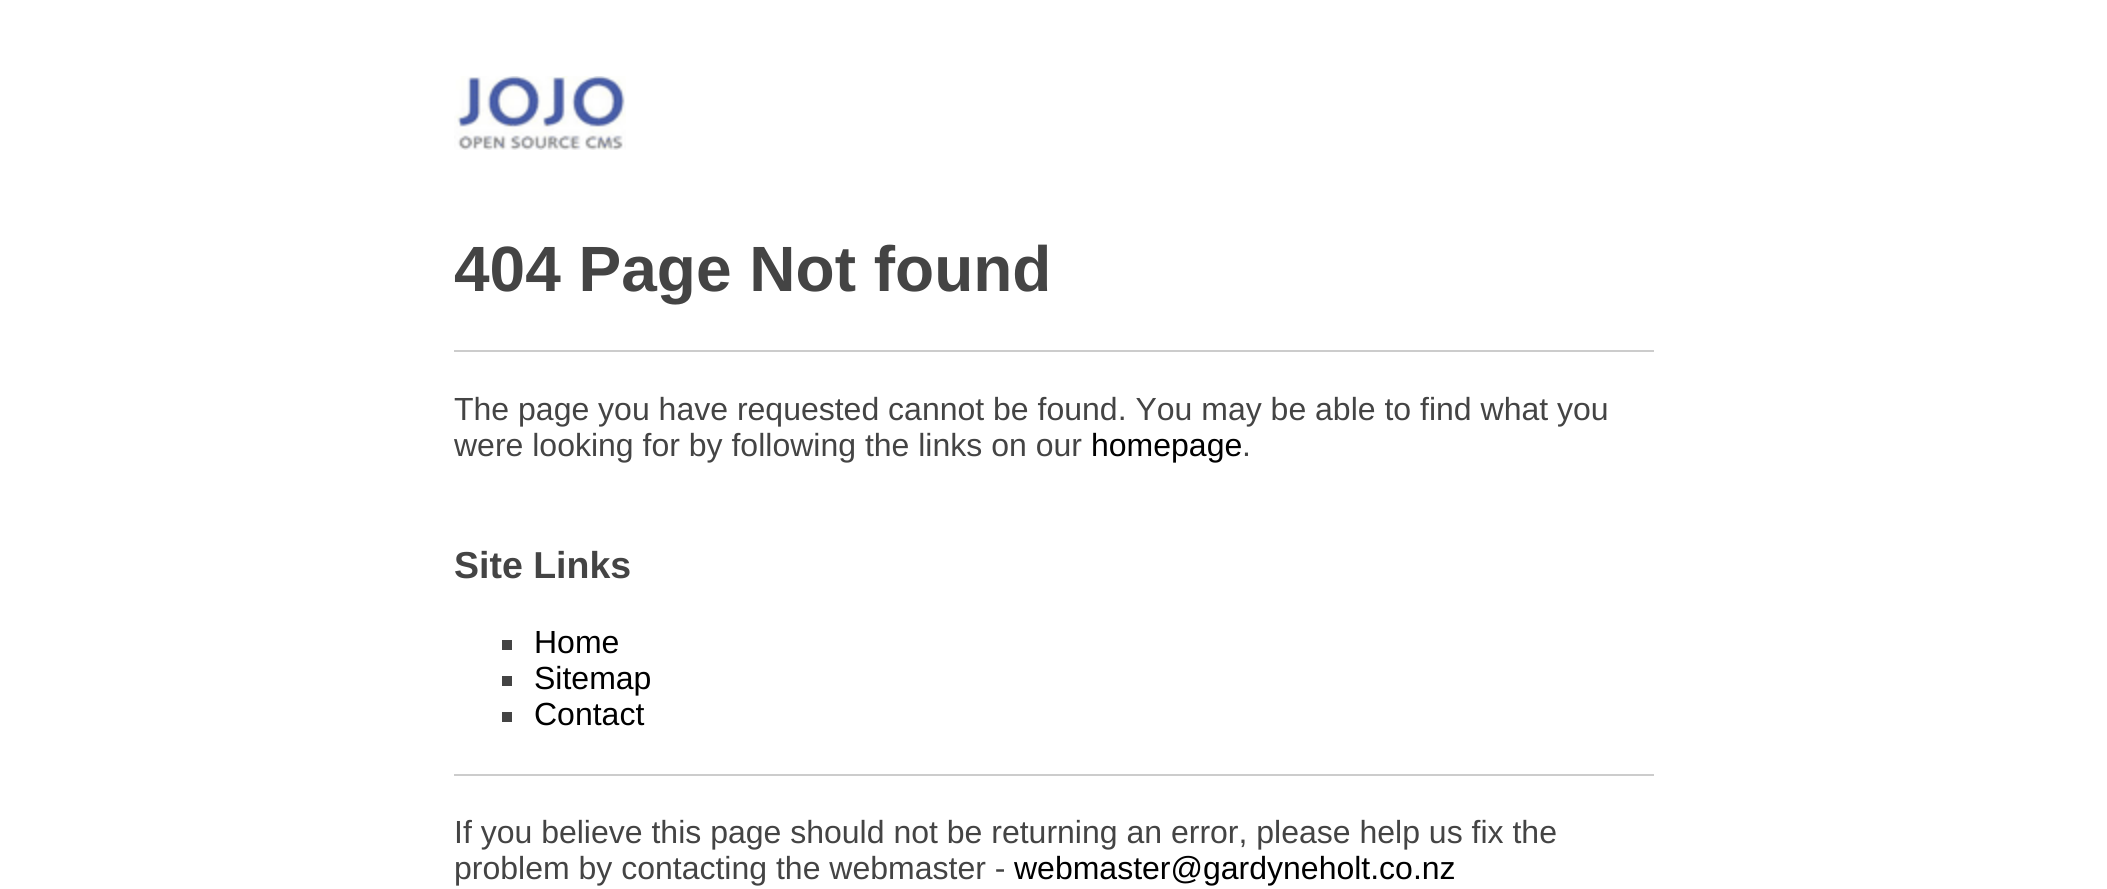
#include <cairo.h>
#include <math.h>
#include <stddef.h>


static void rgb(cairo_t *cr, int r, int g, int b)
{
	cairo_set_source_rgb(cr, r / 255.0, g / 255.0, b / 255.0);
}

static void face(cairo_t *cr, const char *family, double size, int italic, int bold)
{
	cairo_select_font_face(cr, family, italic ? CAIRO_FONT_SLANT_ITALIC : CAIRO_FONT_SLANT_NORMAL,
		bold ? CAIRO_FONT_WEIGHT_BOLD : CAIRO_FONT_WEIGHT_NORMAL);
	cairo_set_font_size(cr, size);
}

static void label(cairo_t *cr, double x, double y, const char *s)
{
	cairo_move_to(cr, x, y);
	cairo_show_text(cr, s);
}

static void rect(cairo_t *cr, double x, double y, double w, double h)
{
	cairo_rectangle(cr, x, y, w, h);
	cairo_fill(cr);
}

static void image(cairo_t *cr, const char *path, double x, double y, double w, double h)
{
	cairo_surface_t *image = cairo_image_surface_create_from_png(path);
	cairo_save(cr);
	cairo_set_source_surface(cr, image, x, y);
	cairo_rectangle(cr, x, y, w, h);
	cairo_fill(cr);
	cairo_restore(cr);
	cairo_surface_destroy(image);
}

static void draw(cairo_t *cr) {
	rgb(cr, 255, 255, 255);
	cairo_paint(cr);
	image(cr, "image0.png", 454, 76, 172, 74);
	face(cr, "Liberation Sans", 64, 0, 1);
	rgb(cr, 68, 68, 68);
	label(cr, 454, 291, "404 Page Not found");
	rgb(cr, 204, 204, 204);
	rect(cr, 454, 350, 1200, 2);
	face(cr, "Liberation Sans", 32, 0, 0);
	rgb(cr, 68, 68, 68);
	label(cr, 454, 420, "The page you have requested cannot be found. You may be able to find what you");
	label(cr, 454, 456, "were looking for by following the links on our");
	rgb(cr, 0, 0, 0);
	label(cr, 1091, 456, "homepage");
	rgb(cr, 68, 68, 68);
	label(cr, 1242, 456, ".");
	face(cr, "Liberation Sans", 37.5, 0, 1);
	label(cr, 454, 578, "Site Links");
	rect(cr, 502, 640, 10, 10);
	face(cr, "Liberation Sans", 32, 0, 0);
	rgb(cr, 0, 0, 0);
	label(cr, 534, 653, "Home");
	rgb(cr, 68, 68, 68);
	rect(cr, 502, 676, 10, 10);
	rgb(cr, 0, 0, 0);
	label(cr, 534, 689, "Sitemap");
	rgb(cr, 68, 68, 68);
	rect(cr, 502, 712, 10, 10);
	rgb(cr, 0, 0, 0);
	label(cr, 534, 725, "Contact");
	rgb(cr, 204, 204, 204);
	rect(cr, 454, 774, 1200, 2);
	rgb(cr, 68, 68, 68);
	label(cr, 454, 843, "If you believe this page should not be returning an error, please help us fix the");
	label(cr, 454, 879, "problem by contacting the webmaster -");
	rgb(cr, 0, 0, 0);
	label(cr, 1014, 879, "webmaster@gardyneholt.co.nz");
}

int main(void) {
	cairo_surface_t *surface = cairo_image_surface_create(CAIRO_FORMAT_RGB24, 2107, 889);
	cairo_t *cr = cairo_create(surface);
	cairo_font_options_t *options = cairo_font_options_create();
	cairo_font_options_set_hint_metrics(options, CAIRO_HINT_METRICS_OFF);
	cairo_font_options_set_hint_style(options, CAIRO_HINT_STYLE_NONE);
	cairo_set_font_options(cr, options);
	cairo_set_miter_limit(cr, 4);
	draw(cr);
	cairo_surface_write_to_png(surface, "render.png");
	cairo_font_options_destroy(options);
	cairo_destroy(cr);
	cairo_surface_destroy(surface);
	return 0;
}
